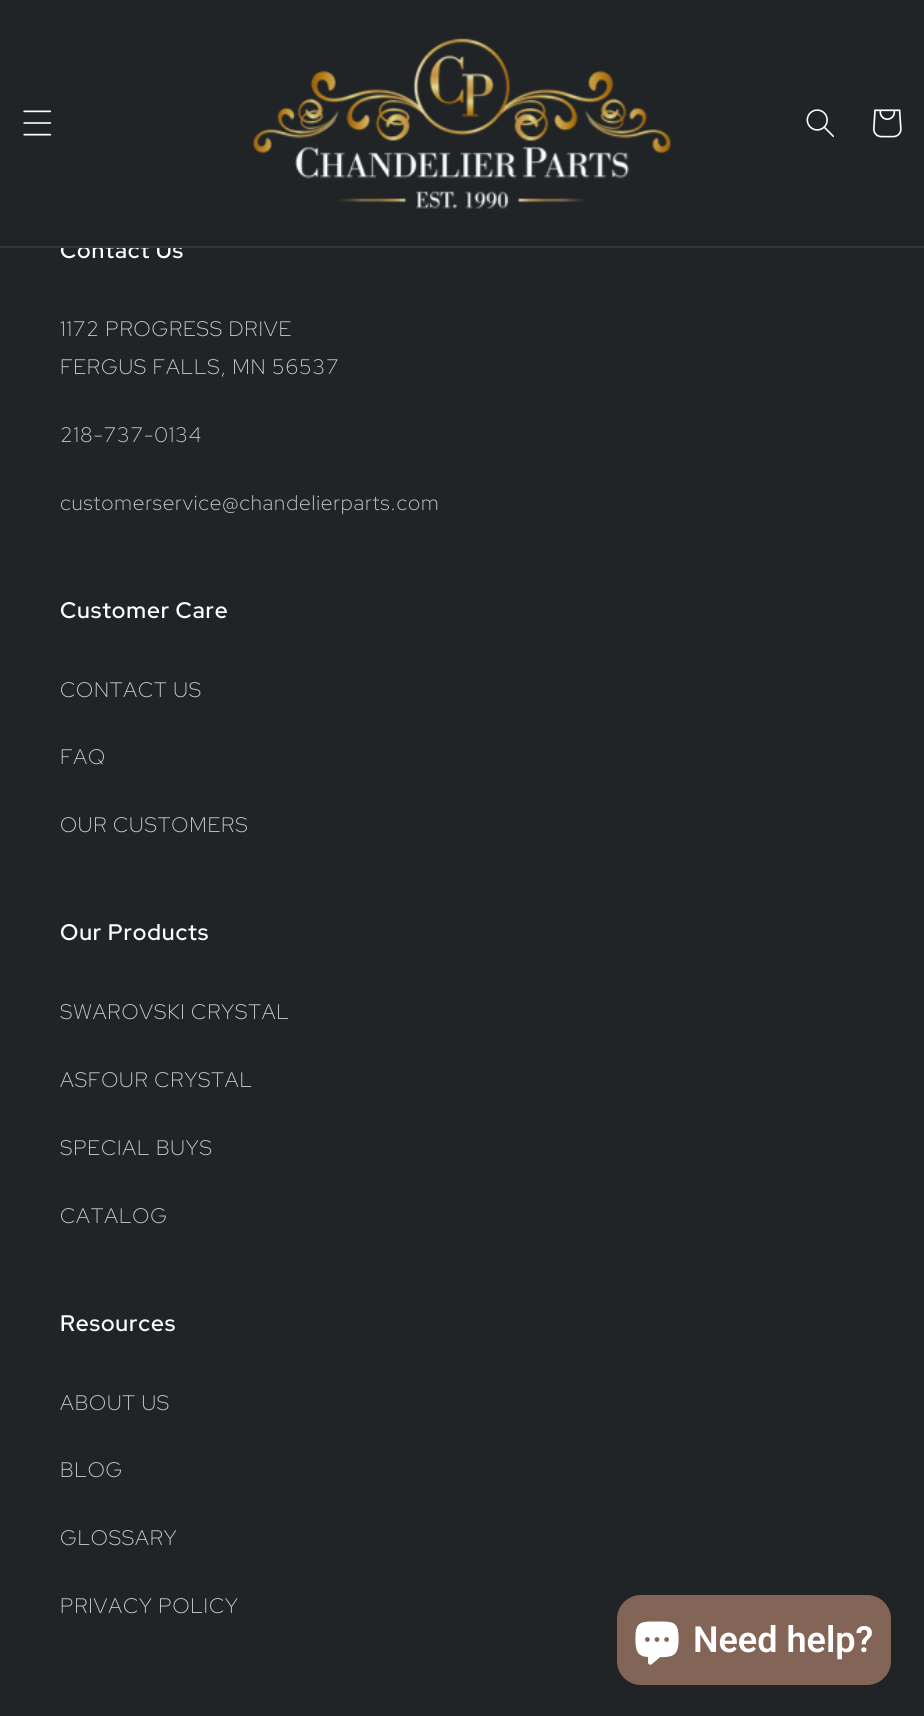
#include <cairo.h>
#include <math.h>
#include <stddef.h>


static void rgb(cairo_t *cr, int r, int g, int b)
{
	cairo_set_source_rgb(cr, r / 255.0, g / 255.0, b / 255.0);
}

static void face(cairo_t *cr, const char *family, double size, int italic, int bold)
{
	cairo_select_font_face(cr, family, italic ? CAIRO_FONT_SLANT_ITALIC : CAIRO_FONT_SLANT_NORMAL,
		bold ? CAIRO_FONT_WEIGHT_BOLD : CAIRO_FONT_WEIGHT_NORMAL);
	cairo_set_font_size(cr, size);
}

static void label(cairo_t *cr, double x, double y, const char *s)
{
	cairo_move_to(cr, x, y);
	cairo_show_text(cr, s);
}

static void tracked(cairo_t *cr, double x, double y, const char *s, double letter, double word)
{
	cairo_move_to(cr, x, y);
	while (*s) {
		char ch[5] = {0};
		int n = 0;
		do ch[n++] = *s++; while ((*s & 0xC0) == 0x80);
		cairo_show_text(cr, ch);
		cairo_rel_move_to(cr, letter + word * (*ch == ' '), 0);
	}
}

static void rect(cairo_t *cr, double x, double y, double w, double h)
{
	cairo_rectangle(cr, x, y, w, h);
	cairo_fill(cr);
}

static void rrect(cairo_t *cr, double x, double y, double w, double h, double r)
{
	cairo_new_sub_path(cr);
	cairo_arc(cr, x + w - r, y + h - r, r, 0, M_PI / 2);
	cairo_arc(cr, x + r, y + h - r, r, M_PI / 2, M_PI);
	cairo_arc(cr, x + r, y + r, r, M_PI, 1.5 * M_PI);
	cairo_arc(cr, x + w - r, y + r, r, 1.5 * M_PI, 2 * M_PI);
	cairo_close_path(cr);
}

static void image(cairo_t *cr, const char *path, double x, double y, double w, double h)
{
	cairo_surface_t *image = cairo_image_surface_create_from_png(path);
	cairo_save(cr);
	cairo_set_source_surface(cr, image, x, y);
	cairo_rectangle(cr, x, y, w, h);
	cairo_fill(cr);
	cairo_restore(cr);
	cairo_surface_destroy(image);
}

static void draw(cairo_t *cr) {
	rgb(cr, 33, 36, 39);
	cairo_paint(cr);
	face(cr, "Red Hat Display SemiBold", 22.5, 0, 0);
	rgb(cr, 255, 255, 255);
	tracked(cr, 60, 258, "Contact Us", 0.9, 0);
	rgb(cr, 33, 36, 39);
	rect(cr, 62, 242, 109, 4);
	rgb(cr, 51, 54, 56);
	rect(cr, 0, 246, 924, 2);
	image(cr, "image0.png", 23, 110, 29, 26);
	image(cr, "image1.png", 253, 38, 418, 171);
	image(cr, "image2.png", 806, 109, 28, 28);
	image(cr, "image3.png", 873, 109, 29, 29);
	face(cr, "Red Hat Display Light", 21, 0, 0);
	rgb(cr, 200, 200, 201);
	tracked(cr, 60, 336, "1172 PROGRESS DRIVE", 0.9, 0);
	tracked(cr, 60, 374, "FERGUS FALLS, MN 56537", 0.9, 0);
	tracked(cr, 60, 442, "218-737-0134", 0.9, 0);
	tracked(cr, 60, 510, "customerservice@chandelierparts.com", 0.9, 0);
	face(cr, "Red Hat Display SemiBold", 22.5, 0, 0);
	rgb(cr, 255, 255, 255);
	tracked(cr, 60, 618, "Customer Care", 0.9, 0);
	face(cr, "Red Hat Display Light", 21, 0, 0);
	rgb(cr, 200, 200, 201);
	tracked(cr, 60, 697, "CONTACT US", 0.9, 0);
	tracked(cr, 60, 764, "FAQ", 0.9, 0);
	tracked(cr, 60, 832, "OUR CUSTOMERS", 0.9, 0);
	face(cr, "Red Hat Display SemiBold", 22.5, 0, 0);
	rgb(cr, 255, 255, 255);
	tracked(cr, 60, 940, "Our Products", 0.9, 0);
	face(cr, "Red Hat Display Light", 21, 0, 0);
	rgb(cr, 200, 200, 201);
	tracked(cr, 60, 1019, "SWAROVSKI CRYSTAL", 0.9, 0);
	tracked(cr, 60, 1087, "ASFOUR CRYSTAL", 0.9, 0);
	tracked(cr, 60, 1155, "SPECIAL BUYS", 0.9, 0);
	tracked(cr, 60, 1223, "CATALOG", 0.9, 0);
	face(cr, "Red Hat Display SemiBold", 22.5, 0, 0);
	rgb(cr, 255, 255, 255);
	tracked(cr, 60, 1331, "Resources", 0.9, 0);
	face(cr, "Red Hat Display Light", 21, 0, 0);
	rgb(cr, 200, 200, 201);
	tracked(cr, 60, 1410, "ABOUT US", 0.9, 0);
	tracked(cr, 60, 1477, "BLOG", 0.9, 0);
	tracked(cr, 60, 1545, "GLOSSARY", 0.9, 0);
	tracked(cr, 60, 1613, "PRIVACY POLICY", 0.9, 0);
	rgb(cr, 131, 101, 88);
	rrect(cr, 617, 1595, 274, 90, 24);
	cairo_fill(cr);
	image(cr, "image4.png", 635, 1621, 44, 44);
	face(cr, "Roboto SemiBold", 36, 0, 0);
	rgb(cr, 255, 255, 255);
	label(cr, 693, 1652, "Need help?");
}

int main(void) {
	cairo_surface_t *surface = cairo_image_surface_create(CAIRO_FORMAT_RGB24, 924, 1716);
	cairo_t *cr = cairo_create(surface);
	cairo_font_options_t *options = cairo_font_options_create();
	cairo_font_options_set_hint_metrics(options, CAIRO_HINT_METRICS_OFF);
	cairo_font_options_set_hint_style(options, CAIRO_HINT_STYLE_NONE);
	cairo_set_font_options(cr, options);
	cairo_set_miter_limit(cr, 4);
	draw(cr);
	cairo_surface_write_to_png(surface, "render.png");
	cairo_font_options_destroy(options);
	cairo_destroy(cr);
	cairo_surface_destroy(surface);
	return 0;
}
